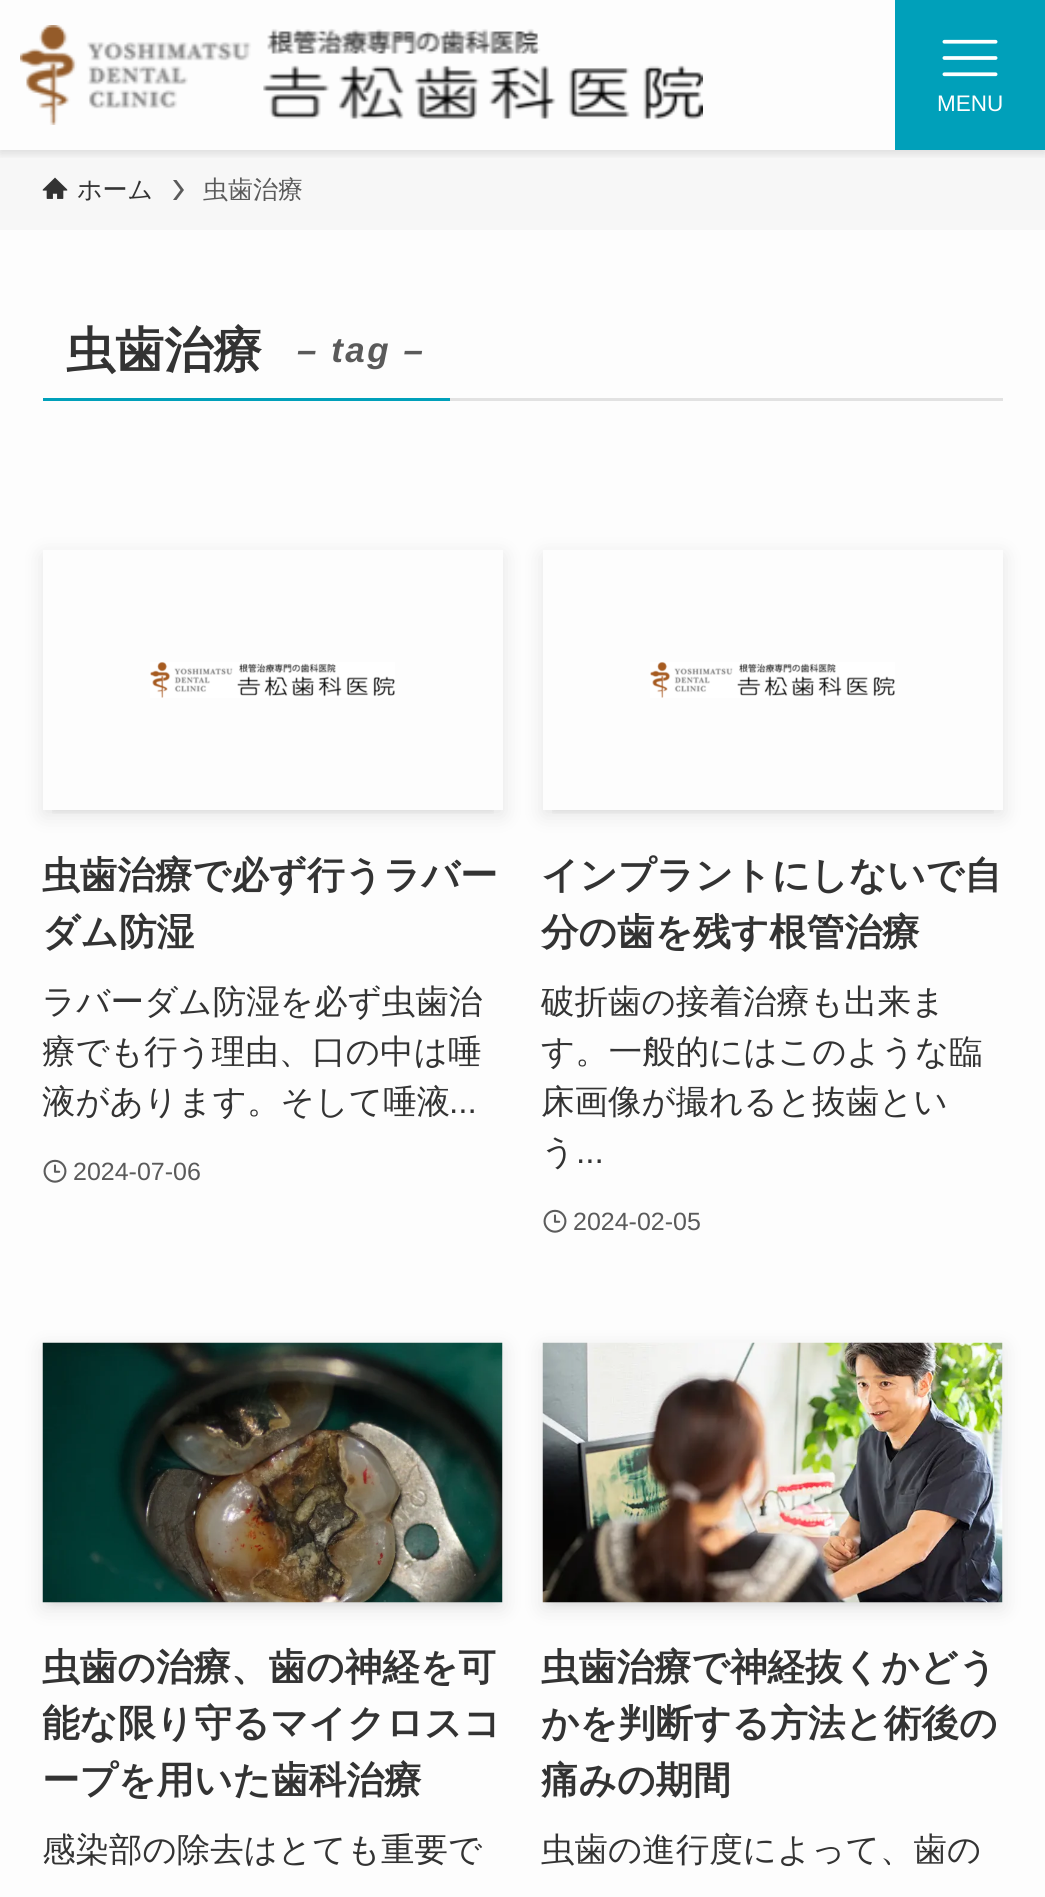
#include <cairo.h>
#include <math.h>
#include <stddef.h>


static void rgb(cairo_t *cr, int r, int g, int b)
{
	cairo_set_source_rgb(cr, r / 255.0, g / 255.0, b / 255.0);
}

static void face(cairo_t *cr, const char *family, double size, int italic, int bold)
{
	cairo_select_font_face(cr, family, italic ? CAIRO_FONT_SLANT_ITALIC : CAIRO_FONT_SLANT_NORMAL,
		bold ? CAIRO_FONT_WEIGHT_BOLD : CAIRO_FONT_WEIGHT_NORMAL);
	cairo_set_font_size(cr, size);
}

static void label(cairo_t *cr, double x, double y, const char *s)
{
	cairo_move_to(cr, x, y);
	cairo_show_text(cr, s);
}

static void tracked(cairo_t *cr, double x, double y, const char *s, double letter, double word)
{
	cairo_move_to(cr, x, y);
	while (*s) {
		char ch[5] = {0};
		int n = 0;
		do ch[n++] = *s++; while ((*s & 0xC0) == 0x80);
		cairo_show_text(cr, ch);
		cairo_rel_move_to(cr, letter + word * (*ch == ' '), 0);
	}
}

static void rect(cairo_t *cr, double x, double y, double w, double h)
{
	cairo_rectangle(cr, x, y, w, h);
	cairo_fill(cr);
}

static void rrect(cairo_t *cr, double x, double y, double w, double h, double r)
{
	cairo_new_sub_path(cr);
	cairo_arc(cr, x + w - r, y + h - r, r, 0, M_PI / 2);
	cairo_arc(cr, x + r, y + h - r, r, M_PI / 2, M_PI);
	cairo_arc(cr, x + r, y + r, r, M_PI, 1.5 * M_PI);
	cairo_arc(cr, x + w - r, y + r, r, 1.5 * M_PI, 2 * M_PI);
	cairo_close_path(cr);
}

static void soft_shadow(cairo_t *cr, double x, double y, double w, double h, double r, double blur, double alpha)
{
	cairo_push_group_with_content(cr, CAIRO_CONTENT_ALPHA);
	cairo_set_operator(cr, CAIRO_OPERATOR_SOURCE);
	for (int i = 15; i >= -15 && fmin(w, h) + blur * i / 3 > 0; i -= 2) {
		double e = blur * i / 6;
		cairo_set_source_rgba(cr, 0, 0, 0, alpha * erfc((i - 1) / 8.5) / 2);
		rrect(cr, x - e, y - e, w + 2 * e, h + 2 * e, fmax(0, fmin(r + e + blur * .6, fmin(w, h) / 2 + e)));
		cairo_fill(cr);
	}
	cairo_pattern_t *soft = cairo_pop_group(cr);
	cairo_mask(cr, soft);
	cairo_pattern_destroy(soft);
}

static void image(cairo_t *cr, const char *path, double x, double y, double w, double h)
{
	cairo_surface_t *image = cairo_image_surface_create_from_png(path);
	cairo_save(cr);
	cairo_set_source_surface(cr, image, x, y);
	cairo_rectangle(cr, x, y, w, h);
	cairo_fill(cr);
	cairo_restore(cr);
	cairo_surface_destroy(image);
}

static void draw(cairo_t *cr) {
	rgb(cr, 253, 253, 253);
	cairo_paint(cr);
	rgb(cr, 247, 247, 247);
	rect(cr, 0, 150, 1045, 80);
	cairo_save(cr);
	cairo_rectangle(cr, 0, 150, 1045, 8);
	cairo_clip(cr);
	rgb(cr, 0, 0, 0);
	soft_shadow(cr, 0, 3, 1045, 150, 0, 5, 0.12);
	cairo_restore(cr);
	image(cr, "image0.png", 20, 25, 683, 100);
	rgb(cr, 0, 160, 186);
	rect(cr, 895, 0, 150, 150);
	image(cr, "image1.png", 942, 39, 56, 38);
	face(cr, "Liberation Sans", 22.5, 0, 0);
	rgb(cr, 255, 255, 255);
	label(cr, 937, 111, "MENU");
	image(cr, "image2.png", 42, 177, 26, 22);
	face(cr, "WenQuanYi Zen Hei Medium", 25, 0, 0);
	rgb(cr, 51, 51, 51);
	label(cr, 77, 198, "ホーム");
	rgb(cr, 90, 90, 90);
	cairo_new_path(cr);
	cairo_move_to(cr, 176.5, 180);
	cairo_line_to(cr, 173, 180);
	cairo_line_to(cr, 180.5, 190);
	cairo_line_to(cr, 173, 200);
	cairo_line_to(cr, 176.5, 200);
	cairo_line_to(cr, 184, 190);
	cairo_close_path(cr);
	cairo_fill(cr);
	label(cr, 203, 198, "虫歯治療");
	rgb(cr, 226, 226, 226);
	rect(cr, 450, 398, 553, 3);
	rgb(cr, 0, 160, 186);
	rect(cr, 43, 398, 407, 3);
	face(cr, "WenQuanYi Zen Hei", 49, 0, 1);
	rgb(cr, 51, 51, 51);
	label(cr, 66, 367, "虫歯治療");
	face(cr, "Liberation Sans", 35, 1, 1);
	rgb(cr, 90, 90, 90);
	tracked(cr, 297, 362, "– tag –", 2.5, 0);
	cairo_save(cr);
	cairo_rectangle(cr, 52, 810, 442, 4);
	cairo_clip(cr);
	rgb(cr, 0, 0, 0);
	soft_shadow(cr, 53, 570, 440, 240, 0, 5, 0.1);
	cairo_restore(cr);
	cairo_save(cr);
	cairo_set_fill_rule(cr, CAIRO_FILL_RULE_EVEN_ODD);
	cairo_new_path(cr);
	cairo_move_to(cr, 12, 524);
	cairo_line_to(cr, 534, 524);
	cairo_line_to(cr, 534, 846);
	cairo_line_to(cr, 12, 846);
	cairo_close_path(cr);
	cairo_move_to(cr, 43, 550);
	cairo_line_to(cr, 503, 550);
	cairo_line_to(cr, 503, 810);
	cairo_line_to(cr, 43, 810);
	cairo_close_path(cr);
	cairo_clip(cr);
	rgb(cr, 0, 0, 0);
	soft_shadow(cr, 43, 555, 460, 260, 0, 10, 0.1);
	cairo_restore(cr);
	image(cr, "image3.png", 150, 662, 245, 36);
	face(cr, "WenQuanYi Zen Hei", 37.6, 0, 1);
	rgb(cr, 51, 51, 51);
	label(cr, 42, 888, "虫歯治療で必ず行うラバー");
	label(cr, 42, 945, "ダム防湿");
	face(cr, "WenQuanYi Zen Hei Medium", 33.5, 0, 0);
	label(cr, 42, 1013, "ラバーダム防湿を必ず虫歯治");
	label(cr, 42, 1063, "療でも行う理由、口の中は唾");
	label(cr, 42, 1113, "液があります。そして唾液");
	face(cr, "Liberation Sans", 33.5, 0, 0);
	label(cr, 449, 1113, "...");
	image(cr, "image4.png", 43, 1159, 24, 24);
	face(cr, "Liberation Sans", 25, 0, 0);
	rgb(cr, 90, 90, 90);
	label(cr, 73, 1180, "2024-07-06");
	cairo_save(cr);
	cairo_rectangle(cr, 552, 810, 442, 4);
	cairo_clip(cr);
	rgb(cr, 0, 0, 0);
	soft_shadow(cr, 553, 570, 440, 240, 0, 5, 0.1);
	cairo_restore(cr);
	cairo_save(cr);
	cairo_set_fill_rule(cr, CAIRO_FILL_RULE_EVEN_ODD);
	cairo_new_path(cr);
	cairo_move_to(cr, 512, 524);
	cairo_line_to(cr, 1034, 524);
	cairo_line_to(cr, 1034, 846);
	cairo_line_to(cr, 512, 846);
	cairo_close_path(cr);
	cairo_move_to(cr, 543, 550);
	cairo_line_to(cr, 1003, 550);
	cairo_line_to(cr, 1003, 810);
	cairo_line_to(cr, 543, 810);
	cairo_close_path(cr);
	cairo_clip(cr);
	rgb(cr, 0, 0, 0);
	soft_shadow(cr, 543, 555, 460, 260, 0, 10, 0.1);
	cairo_restore(cr);
	image(cr, "image3.png", 650, 662, 245, 36);
	face(cr, "WenQuanYi Zen Hei", 37.6, 0, 1);
	rgb(cr, 51, 51, 51);
	label(cr, 541, 888, "インプラントにしないで自");
	label(cr, 541, 945, "分の歯を残す根管治療");
	face(cr, "WenQuanYi Zen Hei Medium", 33.5, 0, 0);
	label(cr, 541, 1013, "破折歯の接着治療も出来ま");
	label(cr, 541, 1063, "す。一般的にはこのような臨");
	label(cr, 541, 1113, "床画像が撮れると抜歯とい");
	label(cr, 541, 1163, "う");
	face(cr, "Liberation Sans", 33.5, 0, 0);
	label(cr, 576, 1163, "...");
	image(cr, "image4.png", 543, 1209, 24, 24);
	face(cr, "Liberation Sans", 25, 0, 0);
	rgb(cr, 90, 90, 90);
	label(cr, 573, 1230, "2024-02-05");
	rgb(cr, 0, 0, 0);
	soft_shadow(cr, 53, 1363, 440, 240, 0, 5, 0.1);
	soft_shadow(cr, 43, 1348, 460, 260, 0, 10, 0.1);
	image(cr, "image5.png", 42, 1342, 461, 261);
	face(cr, "WenQuanYi Zen Hei", 37.6, 0, 1);
	rgb(cr, 51, 51, 51);
	label(cr, 42, 1680, "虫歯の治療、歯の神経を可");
	label(cr, 42, 1736, "能な限り守るマイクロスコ");
	label(cr, 42, 1793, "ープを用いた歯科治療");
	face(cr, "WenQuanYi Zen Hei Medium", 33.5, 0, 0);
	label(cr, 42, 1861, "感染部の除去はとても重要で");
	rgb(cr, 0, 0, 0);
	soft_shadow(cr, 553, 1363, 440, 240, 0, 5, 0.1);
	soft_shadow(cr, 543, 1348, 460, 260, 0, 10, 0.1);
	image(cr, "image6.png", 542, 1342, 461, 261);
	face(cr, "WenQuanYi Zen Hei", 37.6, 0, 1);
	rgb(cr, 51, 51, 51);
	label(cr, 541, 1680, "虫歯治療で神経抜くかどう");
	label(cr, 541, 1736, "かを判断する方法と術後の");
	label(cr, 541, 1793, "痛みの期間");
	face(cr, "WenQuanYi Zen Hei Medium", 33.5, 0, 0);
	label(cr, 541, 1861, "虫歯の進行度によって、歯の");
}

int main(void) {
	cairo_surface_t *surface = cairo_image_surface_create(CAIRO_FORMAT_RGB24, 1045, 1897);
	cairo_t *cr = cairo_create(surface);
	cairo_font_options_t *options = cairo_font_options_create();
	cairo_font_options_set_hint_metrics(options, CAIRO_HINT_METRICS_OFF);
	cairo_font_options_set_hint_style(options, CAIRO_HINT_STYLE_NONE);
	cairo_set_font_options(cr, options);
	cairo_set_miter_limit(cr, 4);
	draw(cr);
	cairo_surface_write_to_png(surface, "render.png");
	cairo_font_options_destroy(options);
	cairo_destroy(cr);
	cairo_surface_destroy(surface);
	return 0;
}
